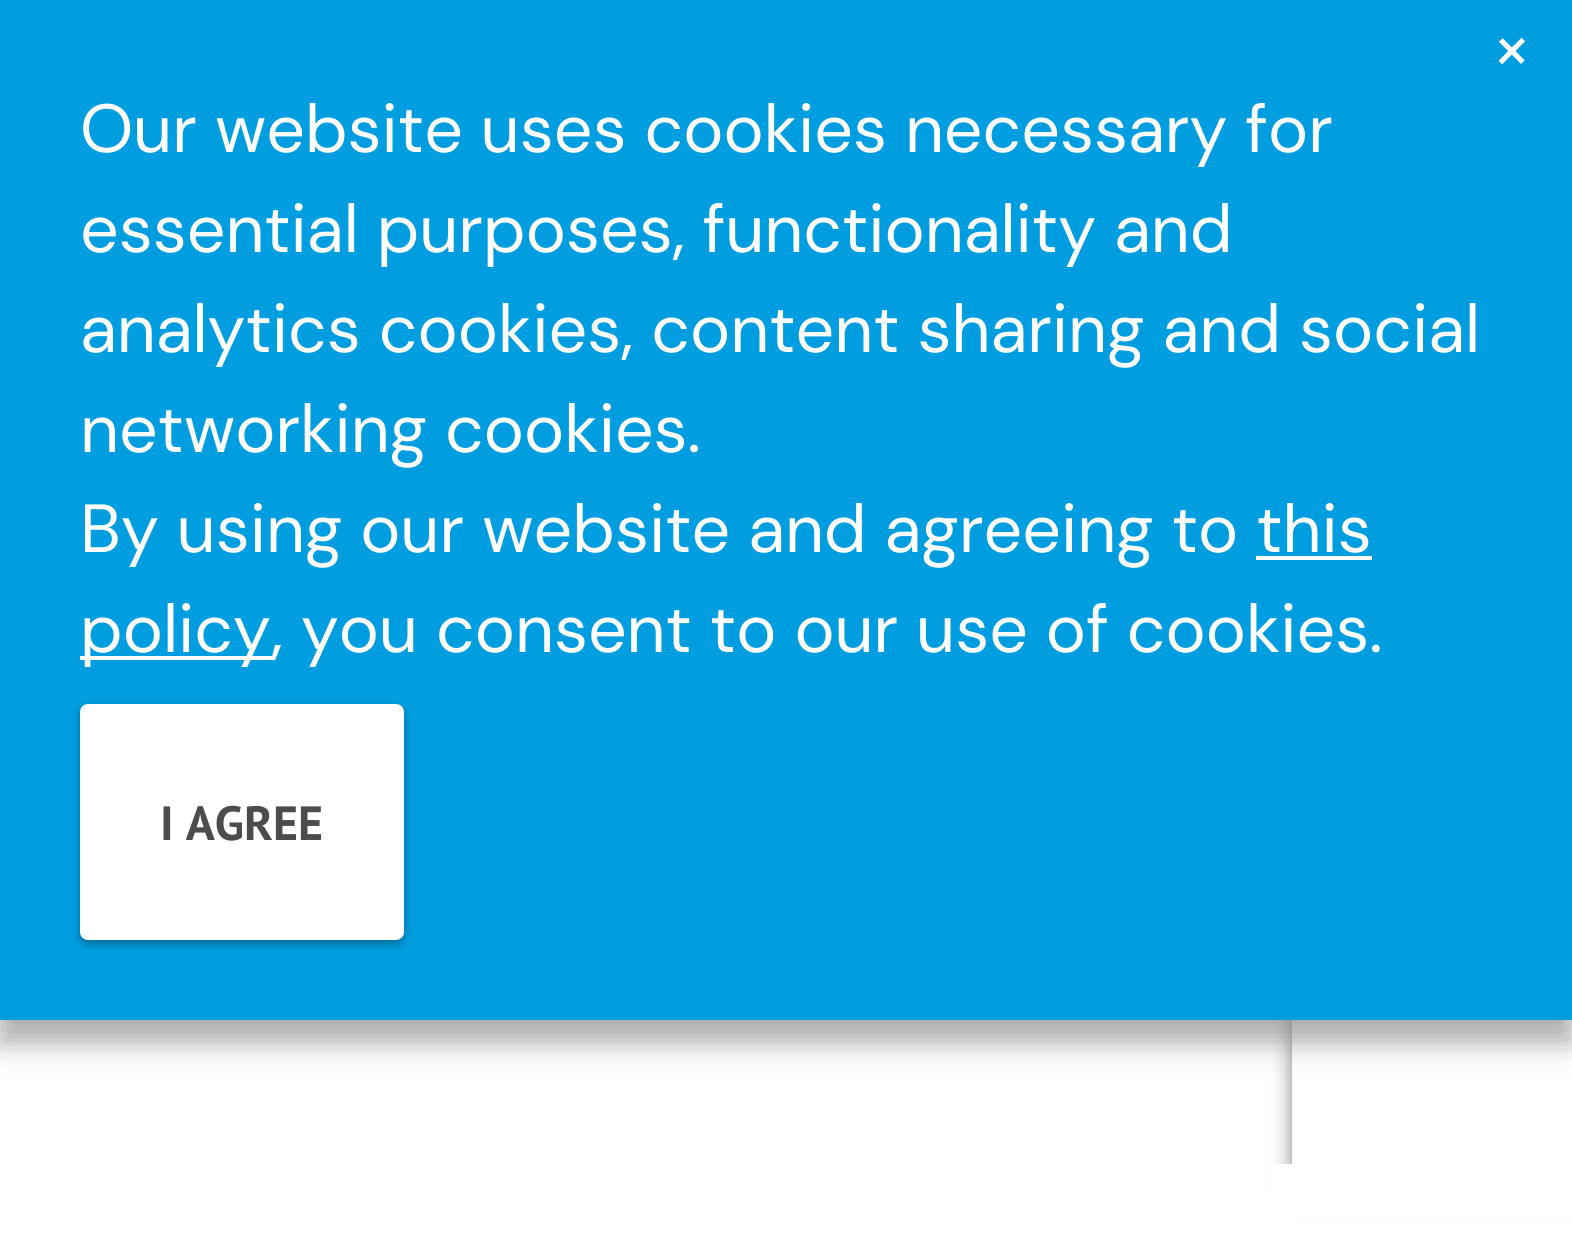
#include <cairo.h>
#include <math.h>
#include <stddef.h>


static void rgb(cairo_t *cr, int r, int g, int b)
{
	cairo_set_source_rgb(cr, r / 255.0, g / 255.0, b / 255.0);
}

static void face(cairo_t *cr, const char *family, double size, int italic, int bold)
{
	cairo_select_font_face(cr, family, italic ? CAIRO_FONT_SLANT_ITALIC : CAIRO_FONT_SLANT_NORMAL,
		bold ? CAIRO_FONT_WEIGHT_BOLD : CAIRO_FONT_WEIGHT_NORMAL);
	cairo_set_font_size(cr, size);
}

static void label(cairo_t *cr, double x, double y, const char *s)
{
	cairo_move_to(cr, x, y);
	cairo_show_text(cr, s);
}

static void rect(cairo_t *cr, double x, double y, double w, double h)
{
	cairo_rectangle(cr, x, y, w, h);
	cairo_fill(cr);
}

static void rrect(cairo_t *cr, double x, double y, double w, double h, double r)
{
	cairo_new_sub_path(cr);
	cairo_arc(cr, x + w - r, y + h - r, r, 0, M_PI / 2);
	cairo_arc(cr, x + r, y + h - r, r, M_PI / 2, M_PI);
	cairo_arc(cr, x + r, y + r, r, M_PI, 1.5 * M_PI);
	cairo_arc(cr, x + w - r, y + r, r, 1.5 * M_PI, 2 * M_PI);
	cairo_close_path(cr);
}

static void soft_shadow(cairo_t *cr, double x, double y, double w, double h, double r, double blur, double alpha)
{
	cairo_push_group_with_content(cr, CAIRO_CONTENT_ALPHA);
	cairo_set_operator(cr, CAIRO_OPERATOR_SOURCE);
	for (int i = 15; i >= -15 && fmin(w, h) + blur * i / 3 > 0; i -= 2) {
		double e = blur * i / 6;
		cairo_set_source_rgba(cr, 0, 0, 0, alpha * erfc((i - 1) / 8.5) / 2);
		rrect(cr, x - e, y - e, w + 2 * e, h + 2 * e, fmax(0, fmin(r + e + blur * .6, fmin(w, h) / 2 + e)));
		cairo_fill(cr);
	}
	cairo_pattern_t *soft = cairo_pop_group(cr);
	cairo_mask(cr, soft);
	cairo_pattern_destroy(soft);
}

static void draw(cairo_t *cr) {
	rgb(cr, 255, 255, 255);
	cairo_paint(cr);
	rgb(cr, 0, 0, 0);
	soft_shadow(cr, 0, 24, 1572, 1020, 0, 12, 0.22);
	soft_shadow(cr, 0, 0, 1572, 1020, 0, 28, 0.25);
	cairo_save(cr);
	cairo_set_fill_rule(cr, CAIRO_FILL_RULE_EVEN_ODD);
	cairo_new_path(cr);
	cairo_move_to(cr, 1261, 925);
	cairo_line_to(cr, 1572, 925);
	cairo_line_to(cr, 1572, 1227);
	cairo_line_to(cr, 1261, 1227);
	cairo_close_path(cr);
	cairo_move_to(cr, 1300, 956);
	cairo_line_to(cr, 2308, 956);
	cairo_curve_to(cr, 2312.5, 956, 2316, 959.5, 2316, 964);
	cairo_line_to(cr, 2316, 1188);
	cairo_curve_to(cr, 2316, 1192.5, 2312.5, 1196, 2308, 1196);
	cairo_line_to(cr, 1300, 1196);
	cairo_curve_to(cr, 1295.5, 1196, 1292, 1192.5, 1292, 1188);
	cairo_line_to(cr, 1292, 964);
	cairo_curve_to(cr, 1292, 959.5, 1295.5, 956, 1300, 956);
	cairo_close_path(cr);
	cairo_clip(cr);
	rgb(cr, 128, 128, 128);
	soft_shadow(cr, 1292, 956, 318, 240, 8, 10, 1);
	cairo_restore(cr);
	rgb(cr, 0, 158, 224);
	rect(cr, 0, 0, 1572, 1020);
	face(cr, "DM Sans", 72, 0, 0);
	rgb(cr, 255, 255, 255);
	label(cr, 1494, 72, "×");
	face(cr, "DM Sans", 68, 0, 0);
	label(cr, 80, 152, "Our website uses cookies necessary for");
	label(cr, 80, 252, "essential purposes, functionality and");
	label(cr, 80, 352, "analytics cookies, content sharing and social");
	label(cr, 80, 452, "networking cookies.");
	label(cr, 80, 552, "By using our website and agreeing to this");
	rect(cr, 1256, 556, 116, 4);
	rect(cr, 80, 656, 192, 4);
	label(cr, 80, 652, "policy, you consent to our use of cookies.");
	rgb(cr, 0, 0, 0);
	soft_shadow(cr, 80, 708, 324, 236, 8, 4, 0.24);
	soft_shadow(cr, 80, 708, 324, 236, 8, 6, 0.12);
	rgb(cr, 255, 255, 255);
	rrect(cr, 80, 704, 324, 236, 8);
	cairo_fill(cr);
	face(cr, "PT Sans", 48, 0, 1);
	rgb(cr, 76, 76, 76);
	label(cr, 160, 840, "I AGREE");
	rgb(cr, 255, 255, 255);
	rect(cr, 1273, 1164, 299, 51);
}

int main(void) {
	cairo_surface_t *surface = cairo_image_surface_create(CAIRO_FORMAT_RGB24, 1572, 1252);
	cairo_t *cr = cairo_create(surface);
	cairo_font_options_t *options = cairo_font_options_create();
	cairo_font_options_set_hint_metrics(options, CAIRO_HINT_METRICS_OFF);
	cairo_font_options_set_hint_style(options, CAIRO_HINT_STYLE_NONE);
	cairo_set_font_options(cr, options);
	cairo_set_miter_limit(cr, 4);
	draw(cr);
	cairo_surface_write_to_png(surface, "render.png");
	cairo_font_options_destroy(options);
	cairo_destroy(cr);
	cairo_surface_destroy(surface);
	return 0;
}
